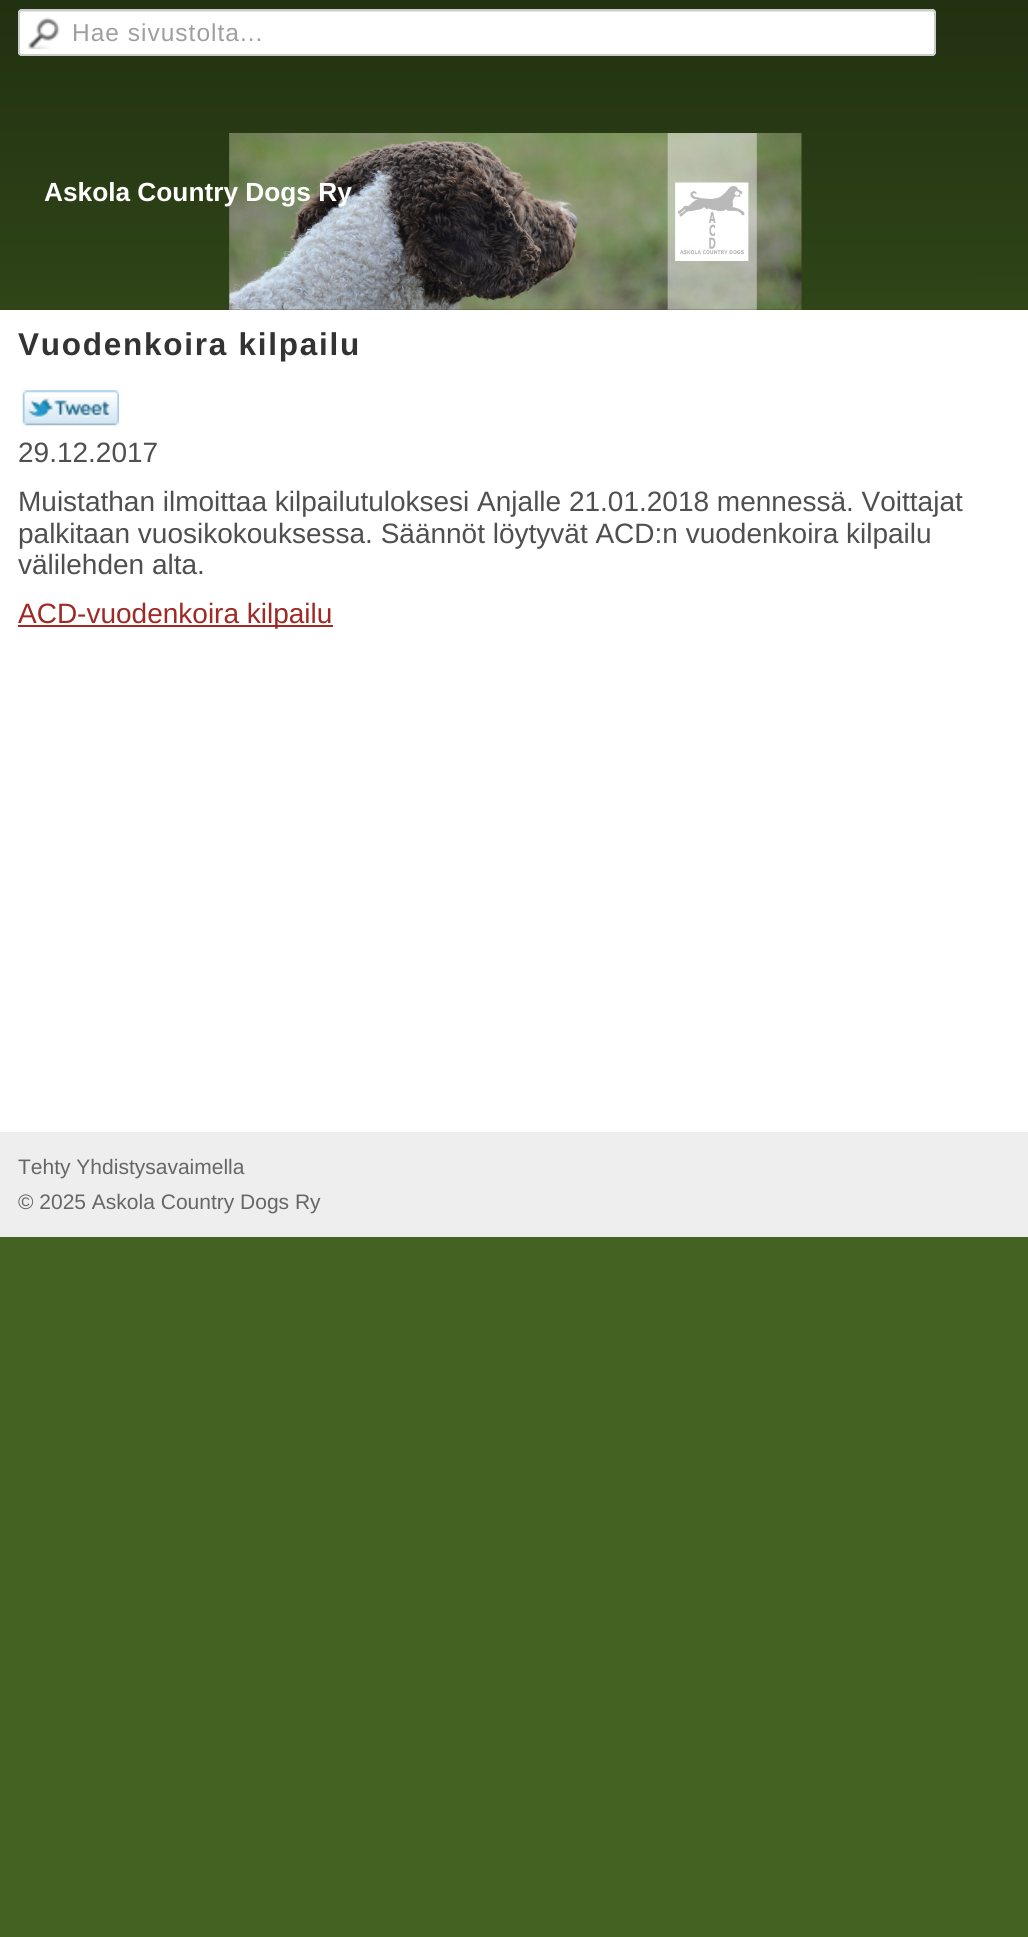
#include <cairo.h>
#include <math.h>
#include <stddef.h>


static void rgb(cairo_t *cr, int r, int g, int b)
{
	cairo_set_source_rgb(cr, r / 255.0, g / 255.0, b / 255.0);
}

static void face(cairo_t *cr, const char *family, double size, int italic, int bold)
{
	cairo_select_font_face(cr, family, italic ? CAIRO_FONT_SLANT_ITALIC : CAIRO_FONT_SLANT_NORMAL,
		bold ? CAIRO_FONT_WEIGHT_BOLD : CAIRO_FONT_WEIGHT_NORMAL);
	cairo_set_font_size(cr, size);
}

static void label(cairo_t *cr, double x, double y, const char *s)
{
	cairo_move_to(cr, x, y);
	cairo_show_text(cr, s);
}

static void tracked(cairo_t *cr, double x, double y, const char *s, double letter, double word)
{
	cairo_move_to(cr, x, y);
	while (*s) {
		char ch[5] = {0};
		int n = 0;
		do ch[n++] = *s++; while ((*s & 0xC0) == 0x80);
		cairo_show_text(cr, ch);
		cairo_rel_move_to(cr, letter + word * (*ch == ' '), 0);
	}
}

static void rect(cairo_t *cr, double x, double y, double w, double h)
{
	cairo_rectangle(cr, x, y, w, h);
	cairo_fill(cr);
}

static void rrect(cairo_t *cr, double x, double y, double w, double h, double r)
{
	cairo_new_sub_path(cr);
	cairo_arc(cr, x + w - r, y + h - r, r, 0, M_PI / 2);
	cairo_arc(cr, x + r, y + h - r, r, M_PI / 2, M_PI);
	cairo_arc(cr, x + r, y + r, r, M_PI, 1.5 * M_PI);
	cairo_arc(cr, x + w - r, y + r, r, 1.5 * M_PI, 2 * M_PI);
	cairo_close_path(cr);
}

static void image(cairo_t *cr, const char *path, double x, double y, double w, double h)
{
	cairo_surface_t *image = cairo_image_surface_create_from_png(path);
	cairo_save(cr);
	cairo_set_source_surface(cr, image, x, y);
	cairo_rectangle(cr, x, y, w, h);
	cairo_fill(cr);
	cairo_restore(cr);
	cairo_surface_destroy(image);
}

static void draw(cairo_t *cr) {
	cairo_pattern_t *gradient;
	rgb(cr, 255, 255, 255);
	cairo_paint(cr);
	gradient = cairo_pattern_create_linear(514, 0, 515, 1937);
	cairo_pattern_add_color_stop_rgba(gradient, 0, 0.133, 0.192, 0.067, 1);
	cairo_pattern_add_color_stop_rgba(gradient, 0.41, 0.267, 0.388, 0.133, 1);
	cairo_pattern_add_color_stop_rgba(gradient, 1, 0.267, 0.388, 0.133, 1);
	cairo_set_source(cr, gradient);
	cairo_pattern_destroy(gradient);
	rect(cr, 0, 0, 1028, 1937);
	rgb(cr, 255, 255, 255);
	rrect(cr, 18, 9, 918, 47, 4);
	cairo_fill(cr);
	image(cr, "image0.png", 28, 17, 32, 32);
	rgb(cr, 230, 230, 230);
	cairo_new_path(cr);
	cairo_move_to(cr, 21, 12);
	cairo_line_to(cr, 933, 12);
	cairo_curve_to(cr, 934, 12, 934, 13, 934, 14);
	cairo_line_to(cr, 934, 54);
	cairo_curve_to(cr, 935, 53, 935, 53, 935, 52);
	cairo_line_to(cr, 935, 13);
	cairo_curve_to(cr, 935, 12, 934, 11, 933, 11);
	cairo_line_to(cr, 21, 11);
	cairo_curve_to(cr, 20, 11, 19, 12, 19, 13);
	cairo_line_to(cr, 19, 14);
	cairo_curve_to(cr, 19, 13, 20, 12, 21, 12);
	cairo_close_path(cr);
	cairo_fill(cr);
	rrect(cr, 19, 10, 916, 45, 3);
	rgb(cr, 204, 204, 204);
	cairo_stroke(cr);
	face(cr, "Liberation Sans", 24.5, 0, 0);
	rgb(cr, 159, 159, 159);
	tracked(cr, 72, 41, "Hae sivustolta...", 1, 0);
	image(cr, "image1.png", 229, 133, 573, 177);
	face(cr, "Liberation Sans", 26.25, 0, 1);
	rgb(cr, 255, 255, 255);
	label(cr, 44, 201, "Askola Country Dogs Ry");
	rect(cr, 0, 310, 1028, 822);
	face(cr, "Liberation Sans", 31.5, 0, 1);
	rgb(cr, 51, 51, 51);
	tracked(cr, 18, 355, "Vuodenkoira kilpailu", 1.75, 0);
	image(cr, "image2.png", 22, 390, 97, 36);
	face(cr, "Liberation Sans", 28, 0, 0);
	rgb(cr, 79, 79, 79);
	label(cr, 18, 462, "29.12.2017");
	label(cr, 18, 511, "Muistathan ilmoittaa kilpailutuloksesi Anjalle 21.01.2018 mennessä. Voittajat");
	label(cr, 18, 543, "palkitaan vuosikokouksessa. Säännöt löytyvät ACD:n vuodenkoira kilpailu");
	label(cr, 18, 574, "välilehden alta.");
	rgb(cr, 159, 41, 37);
	rect(cr, 18, 625, 315, 2);
	label(cr, 18, 623, "ACD-vuodenkoira kilpailu");
	rgb(cr, 238, 238, 238);
	rect(cr, 0, 1132, 1028, 105);
	face(cr, "Liberation Sans", 21, 0, 0);
	rgb(cr, 102, 102, 102);
	label(cr, 18, 1174, "Tehty Yhdistysavaimella");
	label(cr, 18, 1209, "© 2025 Askola Country Dogs Ry");
}

int main(void) {
	cairo_surface_t *surface = cairo_image_surface_create(CAIRO_FORMAT_RGB24, 1028, 1937);
	cairo_t *cr = cairo_create(surface);
	cairo_font_options_t *options = cairo_font_options_create();
	cairo_font_options_set_hint_metrics(options, CAIRO_HINT_METRICS_OFF);
	cairo_font_options_set_hint_style(options, CAIRO_HINT_STYLE_NONE);
	cairo_set_font_options(cr, options);
	cairo_set_miter_limit(cr, 4);
	draw(cr);
	cairo_surface_write_to_png(surface, "render.png");
	cairo_font_options_destroy(options);
	cairo_destroy(cr);
	cairo_surface_destroy(surface);
	return 0;
}
